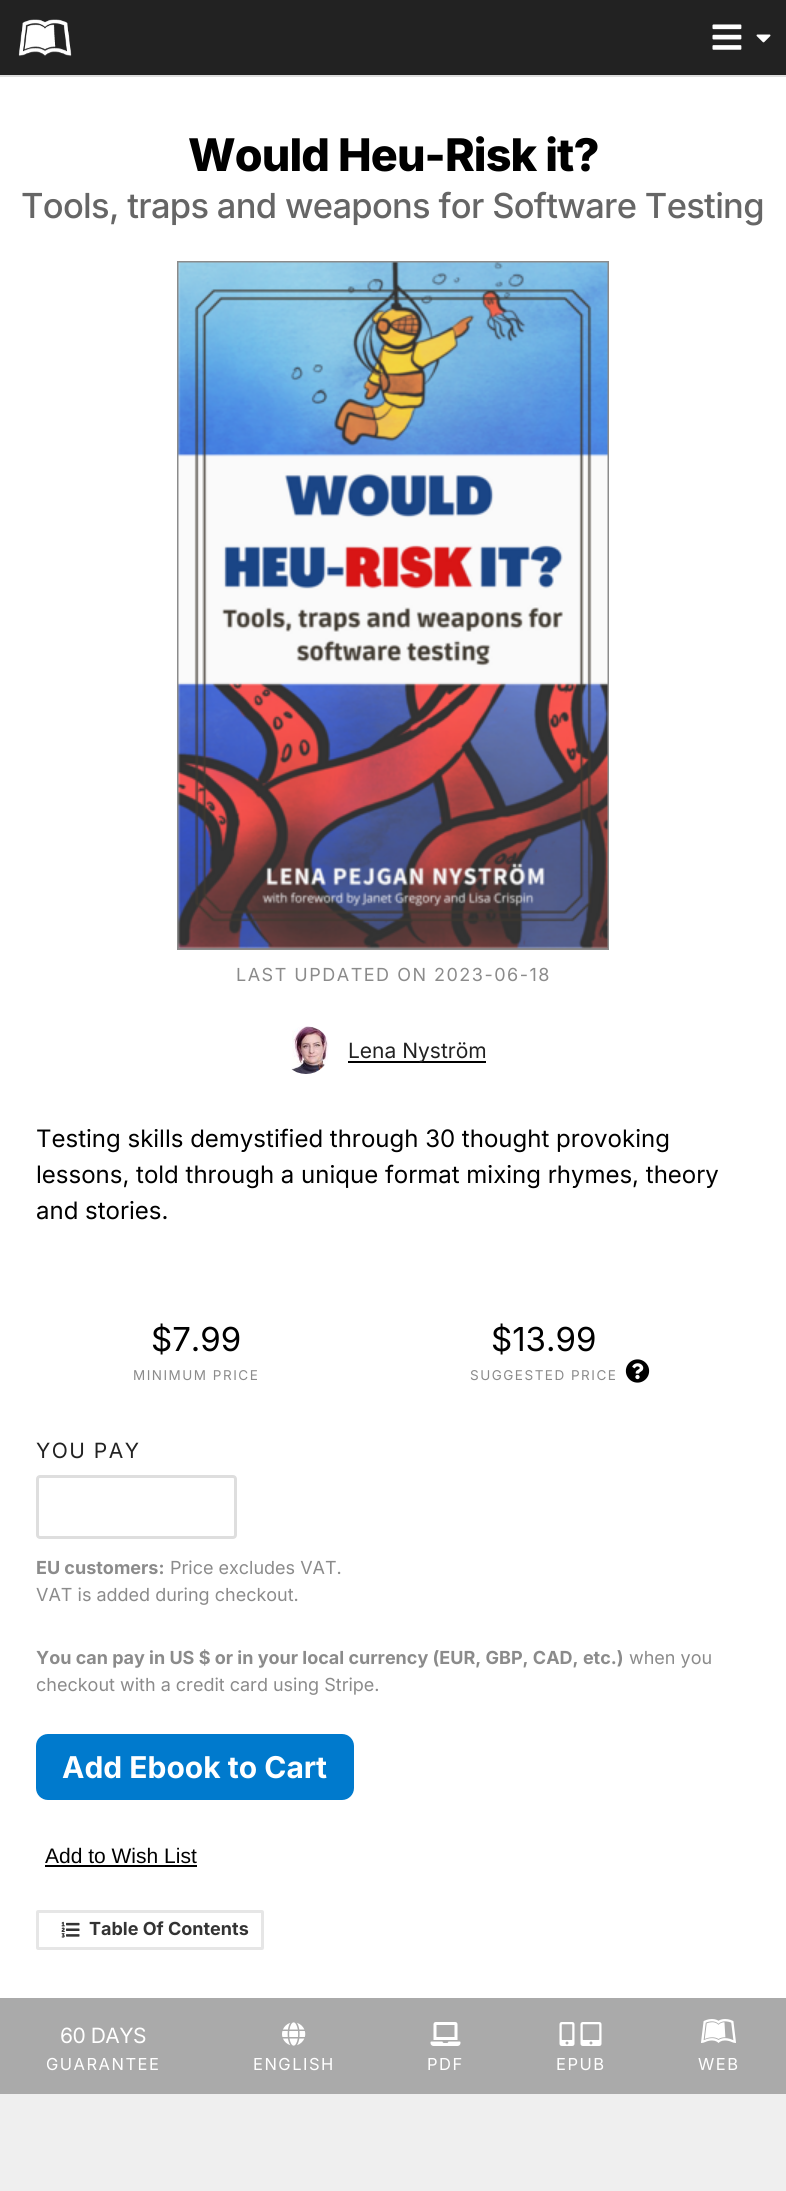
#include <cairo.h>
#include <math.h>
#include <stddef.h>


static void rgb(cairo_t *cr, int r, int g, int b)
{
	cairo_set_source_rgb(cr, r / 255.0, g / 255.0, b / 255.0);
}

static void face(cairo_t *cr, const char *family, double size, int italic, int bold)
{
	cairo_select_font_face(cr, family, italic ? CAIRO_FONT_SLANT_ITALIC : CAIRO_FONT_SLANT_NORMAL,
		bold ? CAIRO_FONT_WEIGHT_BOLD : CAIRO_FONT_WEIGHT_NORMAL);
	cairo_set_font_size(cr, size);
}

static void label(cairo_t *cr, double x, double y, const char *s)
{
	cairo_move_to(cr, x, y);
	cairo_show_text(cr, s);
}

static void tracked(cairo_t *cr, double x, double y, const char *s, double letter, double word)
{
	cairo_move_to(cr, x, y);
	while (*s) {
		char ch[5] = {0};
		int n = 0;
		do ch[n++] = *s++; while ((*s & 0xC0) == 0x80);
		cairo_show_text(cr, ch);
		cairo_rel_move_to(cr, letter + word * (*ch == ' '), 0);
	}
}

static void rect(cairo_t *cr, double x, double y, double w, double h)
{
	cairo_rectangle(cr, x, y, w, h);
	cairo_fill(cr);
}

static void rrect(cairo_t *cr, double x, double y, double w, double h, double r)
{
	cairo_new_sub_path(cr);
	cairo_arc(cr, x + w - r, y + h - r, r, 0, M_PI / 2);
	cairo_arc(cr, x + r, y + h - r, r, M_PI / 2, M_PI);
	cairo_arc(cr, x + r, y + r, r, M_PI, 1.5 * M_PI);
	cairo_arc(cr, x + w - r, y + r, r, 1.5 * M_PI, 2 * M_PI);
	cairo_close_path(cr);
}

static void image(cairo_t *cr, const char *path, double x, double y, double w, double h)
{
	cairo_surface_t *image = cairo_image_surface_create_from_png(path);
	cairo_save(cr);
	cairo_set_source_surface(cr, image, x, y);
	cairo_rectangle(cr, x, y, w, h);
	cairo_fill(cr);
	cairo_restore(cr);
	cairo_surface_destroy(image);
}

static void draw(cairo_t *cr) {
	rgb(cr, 34, 34, 34);
	cairo_paint(cr);
	image(cr, "image0.png", 18, 19, 54, 38);
	image(cr, "image1.png", 712, 24, 30, 26);
	image(cr, "image2.png", 756, 34, 15, 9);
	rgb(cr, 255, 255, 255);
	rect(cr, 0, 77, 786, 1921);
	rgb(cr, 222, 222, 222);
	rect(cr, 0, 75, 786, 2);
	face(cr, "Inter ExtraBold", 45, 0, 0);
	rgb(cr, 0, 0, 0);
	tracked(cr, 188, 171, "Would Heu-Risk it?", -0.9, 0);
	face(cr, "Inter Medium", 34.5, 0, 0);
	rgb(cr, 102, 102, 102);
	tracked(cr, 21, 218, "Tools, traps and weapons for Software Testing", -0.7, 0);
	cairo_rectangle(cr, 178, 262, 430, 687);
	rgb(cr, 139, 139, 139);
	cairo_stroke(cr);
	image(cr, "image3.png", 178, 262, 430, 687);
	face(cr, "Inter", 18, 0, 0);
	tracked(cr, 236, 981, "LAST UPDATED ON 2023-06-18", 1.5, 0);
	image(cr, "image4.png", 291, 1026, 38, 48);
	rgb(cr, 0, 0, 0);
	rect(cr, 348, 1061, 138, 2);
	face(cr, "Inter", 21, 0, 0);
	rgb(cr, 34, 34, 34);
	label(cr, 348, 1058, "Lena Nyström");
	face(cr, "Inter", 24, 0, 0);
	rgb(cr, 0, 0, 0);
	label(cr, 36, 1147, "Testing skills demystified through 30 thought provoking");
	label(cr, 36, 1183, "lessons, told through a unique format mixing rhymes, theory");
	label(cr, 36, 1219, "and stories.");
	face(cr, "Inter", 33, 0, 0);
	label(cr, 151, 1351, "$7.99");
	face(cr, "Inter", 13.5, 0, 0);
	rgb(cr, 139, 139, 139);
	tracked(cr, 133, 1380, "MINIMUM PRICE", 1.5, 0);
	face(cr, "Inter", 33, 0, 0);
	rgb(cr, 0, 0, 0);
	label(cr, 491, 1351, "$13.99");
	face(cr, "Inter", 13.5, 0, 0);
	rgb(cr, 139, 139, 139);
	tracked(cr, 470, 1380, "SUGGESTED PRICE", 1.5, 0);
	image(cr, "image5.png", 625, 1359, 25, 24);
	face(cr, "Inter", 21, 0, 0);
	rgb(cr, 34, 34, 34);
	tracked(cr, 36, 1458, "YOU PAY", 1.5, 0);
	rrect(cr, 37.5, 1476.5, 198, 61, 2.5);
	rgb(cr, 222, 222, 222);
	cairo_set_line_width(cr, 3);
	cairo_stroke(cr);
	face(cr, "Inter", 18, 0, 1);
	rgb(cr, 139, 139, 139);
	label(cr, 36, 1574, "EU customers:");
	face(cr, "Inter", 18, 0, 0);
	label(cr, 170, 1574, "Price excludes VAT.");
	label(cr, 36, 1601, "VAT is added during checkout.");
	face(cr, "Inter", 18, 0, 1);
	label(cr, 36, 1664, "You can pay in US $ or in your local currency (EUR, GBP, CAD, etc.)");
	face(cr, "Inter", 18, 0, 0);
	label(cr, 629, 1664, "when you");
	label(cr, 36, 1691, "checkout with a credit card using Stripe.");
	rgb(cr, 0, 122, 205);
	rrect(cr, 36, 1734, 318, 66, 12);
	cairo_fill(cr);
	face(cr, "Inter", 30, 0, 1);
	rgb(cr, 255, 255, 255);
	label(cr, 62, 1778, "Add Ebook to Cart");
	face(cr, "Liberation Sans", 21, 0, 0);
	rgb(cr, 0, 0, 0);
	label(cr, 45, 1863, "Add to Wish List");
	rect(cr, 45, 1865, 152, 2);
	rrect(cr, 37.5, 1911.5, 225, 37, 0.5);
	rgb(cr, 230, 230, 230);
	cairo_stroke(cr);
	image(cr, "image6.png", 61, 1921, 19, 17);
	face(cr, "Inter", 18, 0, 1);
	rgb(cr, 51, 51, 51);
	label(cr, 89, 1935, "Table Of Contents");
	rgb(cr, 170, 170, 170);
	rect(cr, 0, 1998, 786, 96);
	face(cr, "Inter", 21, 0, 0);
	rgb(cr, 255, 255, 255);
	tracked(cr, 60, 2043, "60 DAYS", -0.5, 0);
	face(cr, "Inter", 16.5, 0, 0);
	tracked(cr, 46, 2070, "GUARANTEE", 1.5, 0);
	image(cr, "image7.png", 282, 2022, 24, 24);
	tracked(cr, 253, 2070, "ENGLISH", 1.5, 0);
	image(cr, "image8.png", 430, 2022, 31, 24);
	tracked(cr, 427, 2070, "PDF", 1.5, 0);
	image(cr, "image9.png", 559, 2022, 16, 24);
	image(cr, "image10.png", 580, 2022, 22, 24);
	tracked(cr, 556, 2070, "EPUB", 1.5, 0);
	image(cr, "image11.png", 701, 2019, 35, 24);
	tracked(cr, 698, 2070, "WEB", 1.5, 0);
	rgb(cr, 239, 239, 239);
	rect(cr, 0, 2094, 786, 97);
}

int main(void) {
	cairo_surface_t *surface = cairo_image_surface_create(CAIRO_FORMAT_RGB24, 786, 2191);
	cairo_t *cr = cairo_create(surface);
	cairo_font_options_t *options = cairo_font_options_create();
	cairo_font_options_set_hint_metrics(options, CAIRO_HINT_METRICS_OFF);
	cairo_font_options_set_hint_style(options, CAIRO_HINT_STYLE_NONE);
	cairo_set_font_options(cr, options);
	cairo_set_miter_limit(cr, 4);
	draw(cr);
	cairo_surface_write_to_png(surface, "render.png");
	cairo_font_options_destroy(options);
	cairo_destroy(cr);
	cairo_surface_destroy(surface);
	return 0;
}
